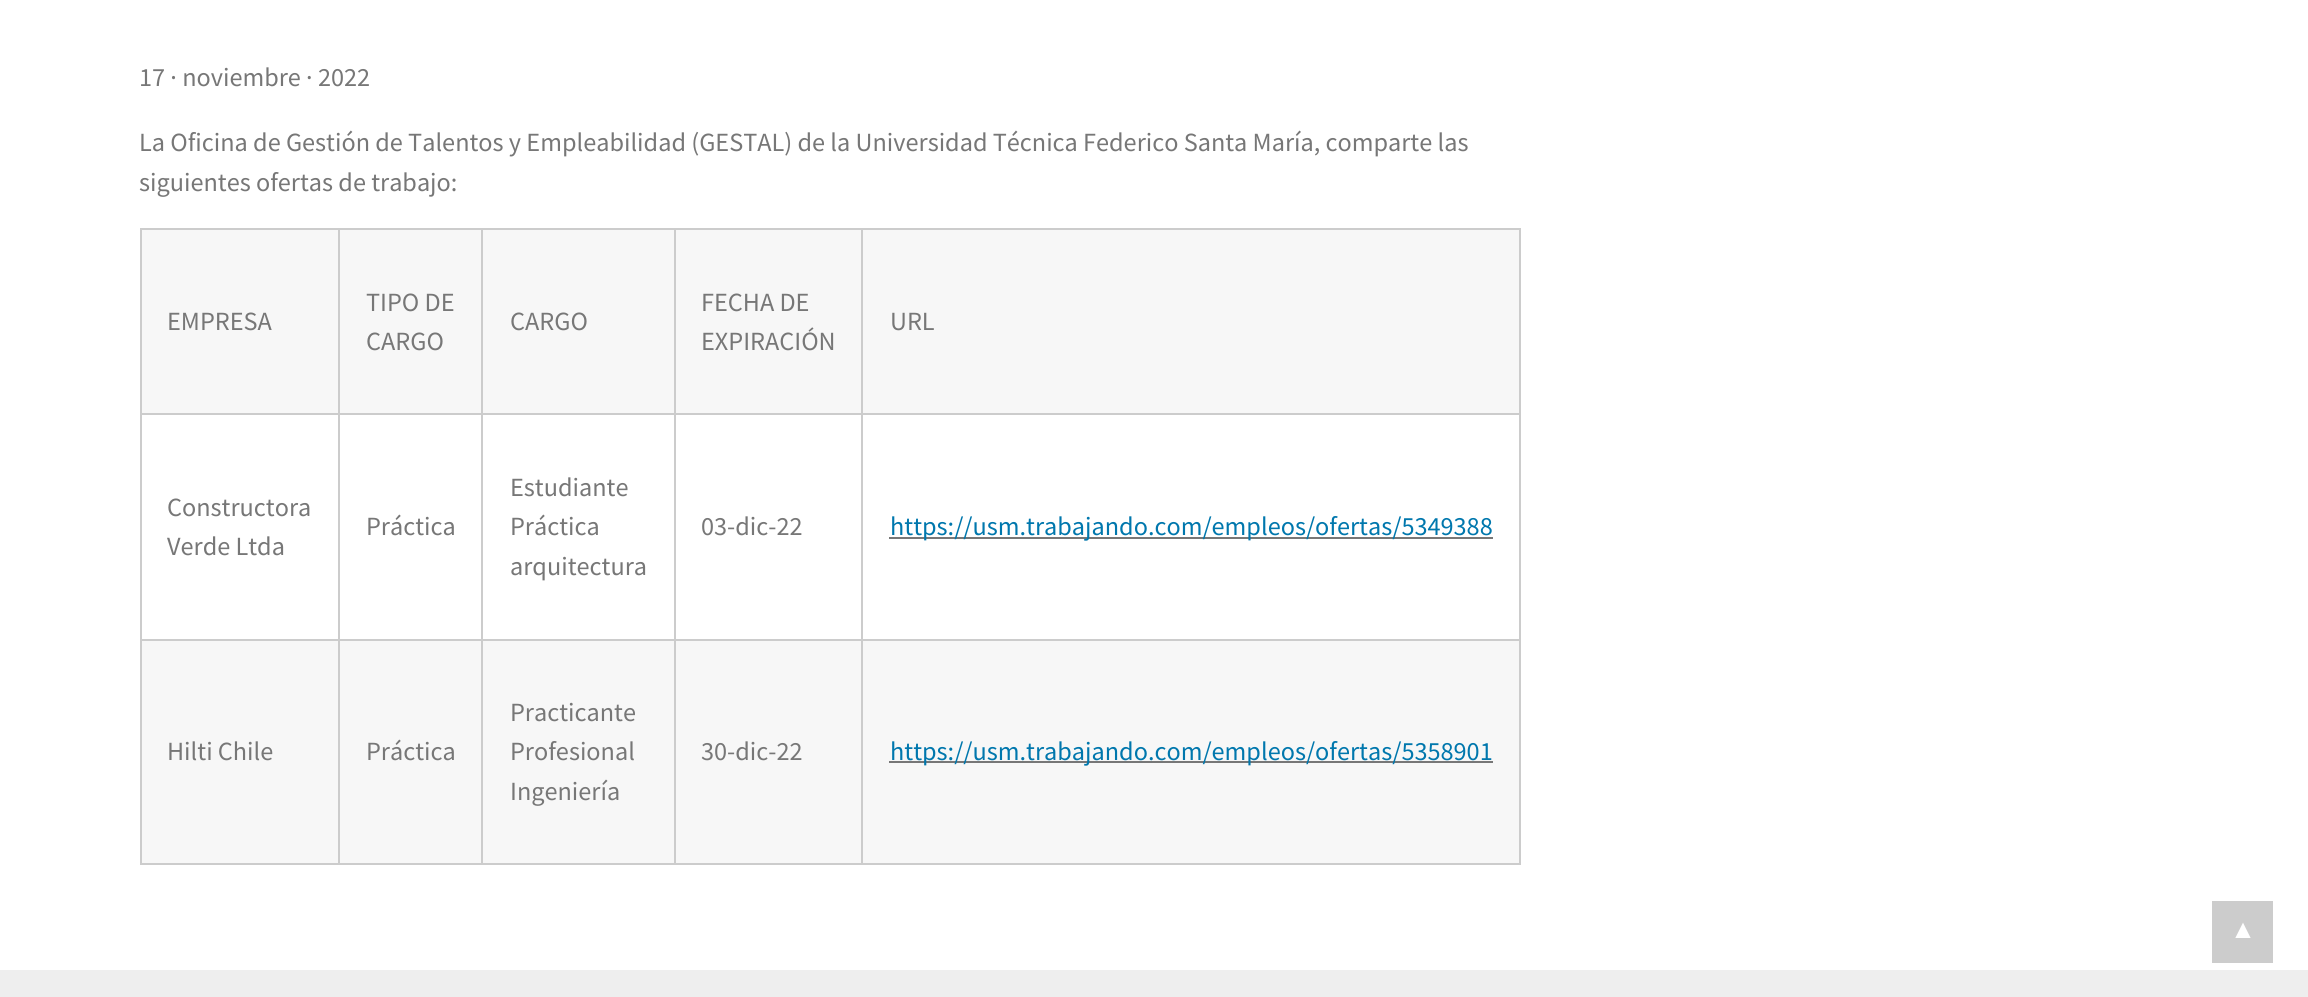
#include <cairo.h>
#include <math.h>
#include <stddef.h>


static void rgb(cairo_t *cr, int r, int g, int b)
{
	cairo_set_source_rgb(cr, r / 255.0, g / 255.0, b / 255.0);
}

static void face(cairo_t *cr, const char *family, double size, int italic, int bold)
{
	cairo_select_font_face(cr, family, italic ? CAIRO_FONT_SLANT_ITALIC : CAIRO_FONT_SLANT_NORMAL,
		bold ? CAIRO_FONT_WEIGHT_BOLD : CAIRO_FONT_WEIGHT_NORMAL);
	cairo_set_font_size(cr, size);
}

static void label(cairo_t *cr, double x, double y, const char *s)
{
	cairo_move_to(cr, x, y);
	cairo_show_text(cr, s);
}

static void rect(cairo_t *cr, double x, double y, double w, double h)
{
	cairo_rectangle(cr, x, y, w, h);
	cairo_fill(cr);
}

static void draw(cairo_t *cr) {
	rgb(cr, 255, 255, 255);
	cairo_paint(cr);
	face(cr, "Source Sans Pro", 26.25, 0, 0);
	rgb(cr, 119, 119, 119);
	label(cr, 139, 86, "17 · noviembre · 2022");
	label(cr, 139, 151, "La Oficina de Gestión de Talentos y Empleabilidad (GESTAL) de la Universidad Técnica Federico Santa María, comparte las");
	label(cr, 139, 191, "siguientes ofertas de trabajo:");
	rgb(cr, 247, 247, 247);
	rect(cr, 142, 230, 196, 183);
	rgb(cr, 204, 204, 204);
	rect(cr, 861, 228, 660, 2);
	rect(cr, 861, 413, 660, 2);
	rect(cr, 861, 639, 660, 2);
	rect(cr, 1519, 639, 2, 226);
	rect(cr, 861, 863, 660, 2);
	rect(cr, 861, 639, 2, 226);
	rect(cr, 674, 639, 189, 2);
	rect(cr, 861, 413, 2, 228);
	rect(cr, 674, 413, 189, 2);
	rect(cr, 861, 228, 2, 187);
	rect(cr, 674, 228, 189, 2);
	rect(cr, 674, 863, 189, 2);
	rect(cr, 674, 639, 2, 226);
	rect(cr, 481, 639, 195, 2);
	rect(cr, 674, 413, 2, 228);
	rect(cr, 481, 413, 195, 2);
	rect(cr, 674, 228, 2, 187);
	rect(cr, 481, 228, 195, 2);
	rect(cr, 481, 863, 195, 2);
	rect(cr, 481, 639, 2, 226);
	rect(cr, 338, 639, 145, 2);
	rect(cr, 481, 413, 2, 228);
	rect(cr, 338, 413, 145, 2);
	rect(cr, 481, 228, 2, 187);
	rect(cr, 338, 228, 145, 2);
	rect(cr, 338, 863, 145, 2);
	rect(cr, 338, 639, 2, 226);
	rect(cr, 140, 639, 200, 2);
	rect(cr, 338, 413, 2, 228);
	rect(cr, 140, 413, 200, 2);
	rect(cr, 338, 228, 2, 187);
	rect(cr, 140, 228, 200, 2);
	rect(cr, 140, 863, 200, 2);
	rect(cr, 140, 639, 2, 226);
	rect(cr, 140, 413, 2, 228);
	rect(cr, 140, 228, 2, 187);
	rgb(cr, 119, 119, 119);
	label(cr, 167, 330, "EMPRESA");
	rgb(cr, 247, 247, 247);
	rect(cr, 340, 230, 141, 183);
	rgb(cr, 119, 119, 119);
	label(cr, 366, 311, "TIPO DE");
	label(cr, 366, 350, "CARGO");
	rgb(cr, 247, 247, 247);
	rect(cr, 483, 230, 191, 183);
	rgb(cr, 119, 119, 119);
	label(cr, 510, 330, "CARGO");
	rgb(cr, 247, 247, 247);
	rect(cr, 676, 230, 185, 183);
	rgb(cr, 119, 119, 119);
	label(cr, 701, 311, "FECHA DE");
	label(cr, 701, 350, "EXPIRACIÓN");
	rgb(cr, 247, 247, 247);
	rect(cr, 863, 230, 656, 183);
	rgb(cr, 204, 204, 204);
	rect(cr, 1519, 413, 2, 228);
	rect(cr, 1519, 228, 2, 187);
	rgb(cr, 119, 119, 119);
	label(cr, 890, 330, "URL");
	label(cr, 167, 516, "Constructora");
	label(cr, 167, 555, "Verde Ltda");
	label(cr, 366, 535, "Práctica");
	label(cr, 510, 496, "Estudiante");
	label(cr, 510, 535, "Práctica");
	label(cr, 510, 575, "arquitectura");
	label(cr, 701, 535, "03-dic-22");
	rect(cr, 889, 537, 604, 2);
	rgb(cr, 0, 119, 173);
	label(cr, 890, 535, "https://usm.trabajando.com/empleos/ofertas/5349388");
	rgb(cr, 247, 247, 247);
	rect(cr, 142, 641, 196, 222);
	rgb(cr, 119, 119, 119);
	label(cr, 167, 760, "Hilti Chile");
	rgb(cr, 247, 247, 247);
	rect(cr, 340, 641, 141, 222);
	rgb(cr, 119, 119, 119);
	label(cr, 366, 760, "Práctica");
	rgb(cr, 247, 247, 247);
	rect(cr, 483, 641, 191, 222);
	rgb(cr, 119, 119, 119);
	label(cr, 510, 721, "Practicante");
	label(cr, 510, 760, "Profesional");
	label(cr, 510, 800, "Ingeniería");
	rgb(cr, 247, 247, 247);
	rect(cr, 676, 641, 185, 222);
	rgb(cr, 119, 119, 119);
	label(cr, 701, 760, "30-dic-22");
	rgb(cr, 247, 247, 247);
	rect(cr, 863, 641, 656, 222);
	rgb(cr, 119, 119, 119);
	rect(cr, 889, 761, 604, 2);
	rgb(cr, 0, 119, 173);
	label(cr, 890, 760, "https://usm.trabajando.com/empleos/ofertas/5358901");
	rgb(cr, 204, 204, 204);
	rect(cr, 2212, 901, 61, 62);
	face(cr, "Liberation Sans", 26.25, 0, 0);
	rgb(cr, 255, 255, 255);
	label(cr, 2230, 938, "▲");
	rgb(cr, 238, 238, 238);
	rect(cr, 0, 970, 2308, 27);
}

int main(void) {
	cairo_surface_t *surface = cairo_image_surface_create(CAIRO_FORMAT_RGB24, 2308, 997);
	cairo_t *cr = cairo_create(surface);
	cairo_font_options_t *options = cairo_font_options_create();
	cairo_font_options_set_hint_metrics(options, CAIRO_HINT_METRICS_OFF);
	cairo_font_options_set_hint_style(options, CAIRO_HINT_STYLE_NONE);
	cairo_set_font_options(cr, options);
	cairo_set_miter_limit(cr, 4);
	draw(cr);
	cairo_surface_write_to_png(surface, "render.png");
	cairo_font_options_destroy(options);
	cairo_destroy(cr);
	cairo_surface_destroy(surface);
	return 0;
}
